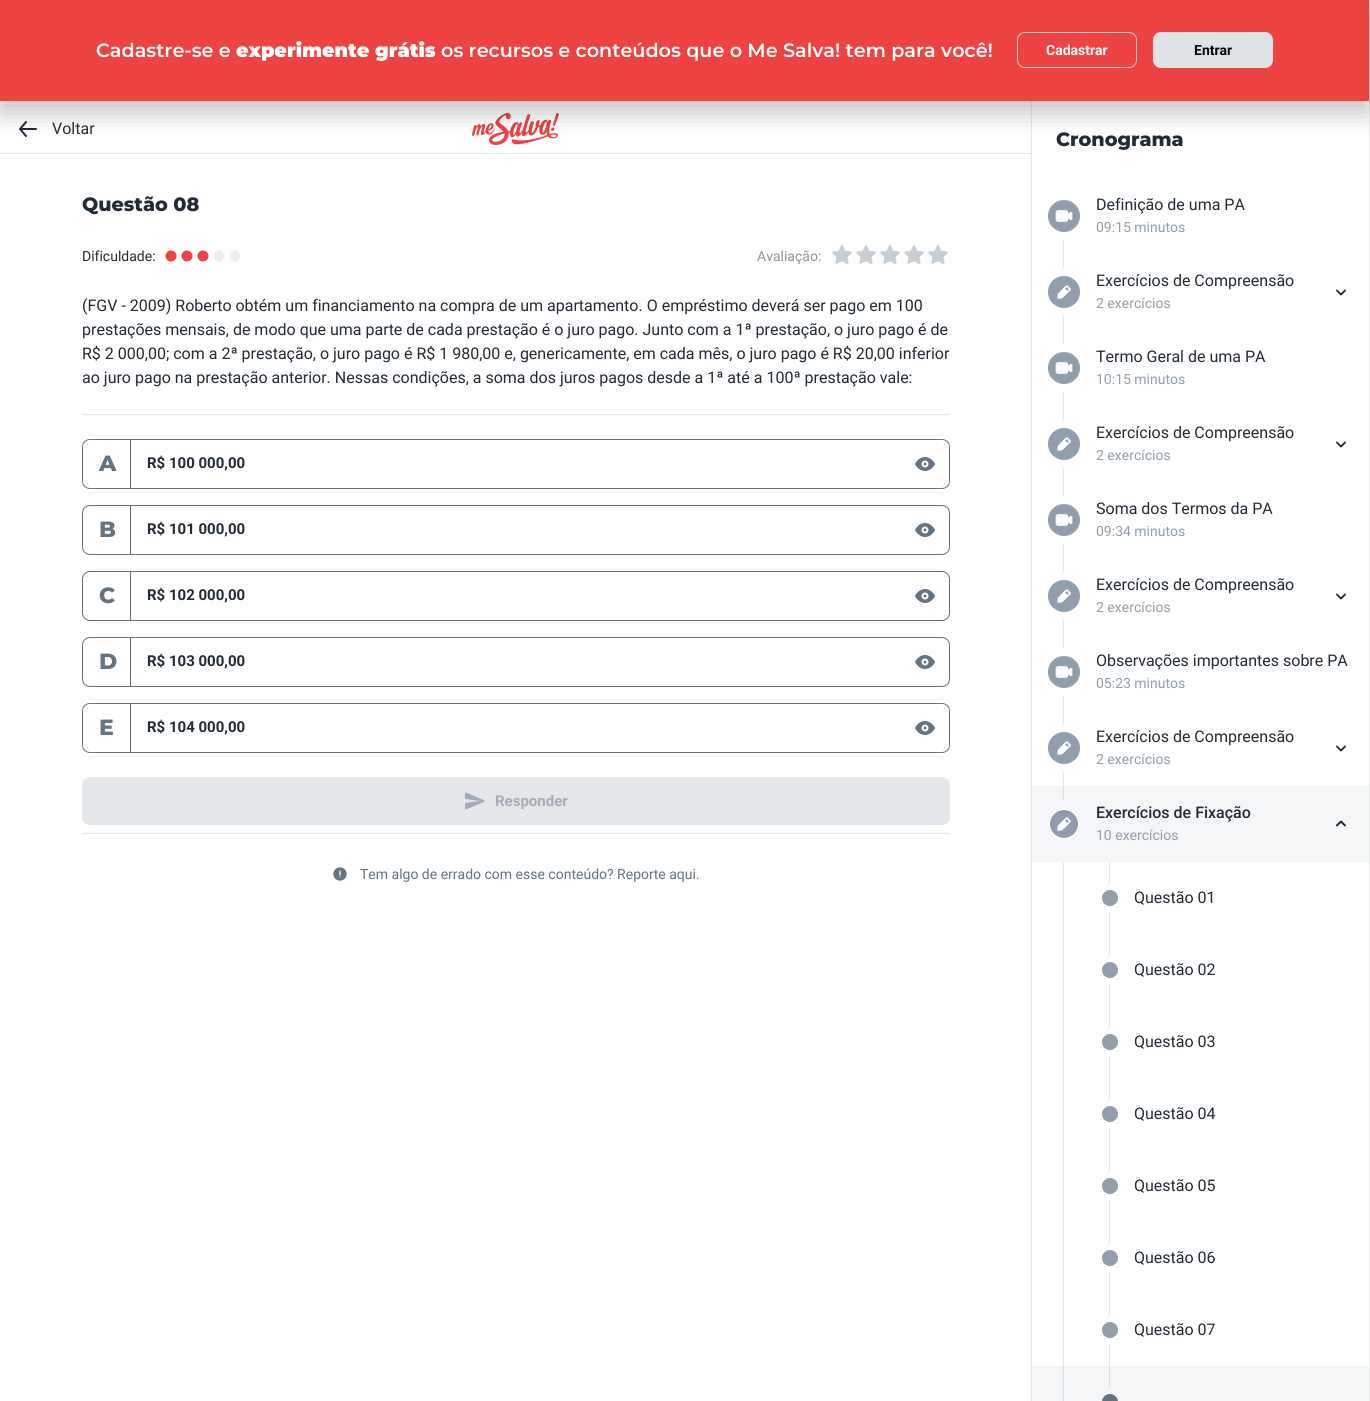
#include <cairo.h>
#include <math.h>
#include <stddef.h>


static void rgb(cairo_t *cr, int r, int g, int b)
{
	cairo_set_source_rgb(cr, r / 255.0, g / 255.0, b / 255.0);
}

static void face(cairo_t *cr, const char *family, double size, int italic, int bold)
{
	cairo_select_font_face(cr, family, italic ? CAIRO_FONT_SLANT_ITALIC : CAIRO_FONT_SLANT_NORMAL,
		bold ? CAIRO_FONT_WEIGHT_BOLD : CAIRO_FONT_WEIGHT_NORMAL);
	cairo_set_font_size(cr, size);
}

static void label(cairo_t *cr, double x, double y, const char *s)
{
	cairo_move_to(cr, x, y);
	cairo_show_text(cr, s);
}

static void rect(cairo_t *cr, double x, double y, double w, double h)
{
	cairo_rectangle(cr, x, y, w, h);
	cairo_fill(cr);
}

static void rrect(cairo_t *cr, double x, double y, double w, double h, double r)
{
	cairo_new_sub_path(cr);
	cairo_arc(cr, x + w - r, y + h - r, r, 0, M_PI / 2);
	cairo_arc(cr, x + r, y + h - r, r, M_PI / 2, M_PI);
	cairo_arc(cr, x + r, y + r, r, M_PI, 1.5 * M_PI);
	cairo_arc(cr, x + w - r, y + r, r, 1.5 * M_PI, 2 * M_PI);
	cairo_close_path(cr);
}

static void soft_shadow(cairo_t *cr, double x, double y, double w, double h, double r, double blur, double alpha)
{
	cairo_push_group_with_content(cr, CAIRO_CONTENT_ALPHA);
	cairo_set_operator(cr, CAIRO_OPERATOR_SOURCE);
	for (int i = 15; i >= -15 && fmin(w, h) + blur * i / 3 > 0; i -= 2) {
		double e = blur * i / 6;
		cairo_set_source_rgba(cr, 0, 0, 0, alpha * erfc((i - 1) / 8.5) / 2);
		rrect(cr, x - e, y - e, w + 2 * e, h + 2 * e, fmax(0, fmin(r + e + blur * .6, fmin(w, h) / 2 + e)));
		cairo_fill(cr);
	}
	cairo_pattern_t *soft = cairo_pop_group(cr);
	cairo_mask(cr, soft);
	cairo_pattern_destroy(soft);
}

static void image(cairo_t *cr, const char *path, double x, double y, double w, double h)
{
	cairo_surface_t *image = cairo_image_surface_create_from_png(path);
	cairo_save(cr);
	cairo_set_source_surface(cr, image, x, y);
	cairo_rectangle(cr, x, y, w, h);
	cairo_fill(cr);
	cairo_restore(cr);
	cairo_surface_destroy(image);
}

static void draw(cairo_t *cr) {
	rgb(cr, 255, 255, 255);
	cairo_paint(cr);
	rgb(cr, 229, 232, 235);
	rect(cr, 1369, 0, 1, 1401);
	image(cr, "image0.png", 19, 121, 18, 16);
	image(cr, "image1.png", 472, 113, 87, 32);
	rect(cr, 1031, 101, 1, 1300);
	rgb(cr, 0, 0, 0);
	soft_shadow(cr, 0, 12, 1369, 101, 0, 12, 0.24);
	rgb(cr, 146, 159, 142);
	soft_shadow(cr, 0, 0, 1369, 101, 0, 1, 0.24);
	rgb(cr, 237, 67, 67);
	rect(cr, 0, 0, 1369, 101);
	face(cr, "Montserrat SemiBold", 19.2, 0, 0);
	rgb(cr, 255, 255, 255);
	label(cr, 96, 57, "Cadastre-se e");
	face(cr, "Montserrat Black", 19.2, 0, 0);
	label(cr, 236, 57, "experimente grátis");
	face(cr, "Montserrat SemiBold", 19.2, 0, 0);
	label(cr, 441, 57, "os recursos e conteúdos que o Me Salva! tem para você!");
	rrect(cr, 1017.5, 32.5, 119, 35, 7.5);
	rgb(cr, 196, 205, 213);
	cairo_set_line_width(cr, 1);
	cairo_stroke(cr);
	face(cr, "Roboto", 14, 0, 1);
	rgb(cr, 255, 255, 255);
	label(cr, 1046, 55, "Cadastrar");
	rgb(cr, 223, 227, 232);
	rrect(cr, 1153, 32, 120, 36, 8);
	cairo_fill(cr);
	rgb(cr, 0, 0, 0);
	label(cr, 1194, 55, "Entrar");
	face(cr, "Roboto", 16, 0, 0);
	rgb(cr, 33, 43, 54);
	label(cr, 52, 134, "Voltar");
	rgb(cr, 229, 232, 235);
	rect(cr, 0, 153, 1031, 1);
	face(cr, "Montserrat ExtraBold", 19.2, 0, 0);
	rgb(cr, 33, 43, 54);
	label(cr, 82, 211, "Questão 08");
	face(cr, "Roboto", 14, 0, 0);
	label(cr, 82, 261, "Dificuldade:");
	rgb(cr, 237, 67, 67);
	cairo_new_path(cr);
	cairo_arc(cr, 171, 256, 5.5, 0, 2 * M_PI);
	cairo_fill(cr);
	cairo_arc(cr, 187, 256, 5.5, 0, 2 * M_PI);
	cairo_fill(cr);
	cairo_arc(cr, 203, 256, 5.5, 0, 2 * M_PI);
	cairo_fill(cr);
	rgb(cr, 237, 239, 242);
	cairo_arc(cr, 219, 256, 5.5, 0, 2 * M_PI);
	cairo_fill(cr);
	cairo_arc(cr, 235, 256, 5.5, 0, 2 * M_PI);
	cairo_fill(cr);
	rgb(cr, 144, 149, 155);
	label(cr, 757, 261, "Avaliação:");
	image(cr, "image2.png", 832, 245, 20, 19);
	image(cr, "image2.png", 856, 245, 20, 19);
	image(cr, "image2.png", 880, 245, 20, 19);
	image(cr, "image2.png", 904, 245, 20, 19);
	image(cr, "image2.png", 928, 245, 20, 19);
	face(cr, "Roboto", 16, 0, 0);
	rgb(cr, 33, 43, 54);
	label(cr, 82, 311, "(FGV - 2009) Roberto obtém um financiamento na compra de um apartamento. O empréstimo deverá ser pago em 100");
	label(cr, 82, 335, "prestações mensais, de modo que uma parte de cada prestação é o juro pago. Junto com a 1ª prestação, o juro pago é de");
	label(cr, 82, 359, "R$ 2 000,00; com a 2ª prestação, o juro pago é R$ 1 980,00 e, genericamente, em cada mês, o juro pago é R$ 20,00 inferior");
	label(cr, 82, 383, "ao juro pago na prestação anterior. Nessas condições, a soma dos juros pagos desde a 1ª até a 100ª prestação vale:");
	rgb(cr, 229, 232, 235);
	rect(cr, 82, 414, 868, 1);
	rrect(cr, 82.5, 439.5, 867, 49, 7.5);
	rgb(cr, 99, 115, 129);
	cairo_stroke(cr);
	rect(cr, 130, 440, 1, 48);
	face(cr, "Montserrat ExtraBold", 22, 0, 0);
	label(cr, 99, 471, "A");
	face(cr, "Roboto", 15, 0, 1);
	rgb(cr, 33, 43, 54);
	label(cr, 147, 468, "R$ 100 000,00");
	image(cr, "image3.png", 915, 457, 20, 14);
	rrect(cr, 82.5, 505.5, 867, 49, 7.5);
	rgb(cr, 99, 115, 129);
	cairo_stroke(cr);
	rect(cr, 130, 506, 1, 48);
	face(cr, "Montserrat ExtraBold", 22, 0, 0);
	label(cr, 99, 537, "B");
	face(cr, "Roboto", 15, 0, 1);
	rgb(cr, 33, 43, 54);
	label(cr, 147, 534, "R$ 101 000,00");
	image(cr, "image3.png", 915, 523, 20, 14);
	rrect(cr, 82.5, 571.5, 867, 49, 7.5);
	rgb(cr, 99, 115, 129);
	cairo_stroke(cr);
	rect(cr, 130, 572, 1, 48);
	face(cr, "Montserrat ExtraBold", 22, 0, 0);
	label(cr, 99, 603, "C");
	face(cr, "Roboto", 15, 0, 1);
	rgb(cr, 33, 43, 54);
	label(cr, 147, 600, "R$ 102 000,00");
	image(cr, "image3.png", 915, 589, 20, 14);
	rrect(cr, 82.5, 637.5, 867, 49, 7.5);
	rgb(cr, 99, 115, 129);
	cairo_stroke(cr);
	rect(cr, 130, 638, 1, 48);
	face(cr, "Montserrat ExtraBold", 22, 0, 0);
	label(cr, 99, 669, "D");
	face(cr, "Roboto", 15, 0, 1);
	rgb(cr, 33, 43, 54);
	label(cr, 147, 666, "R$ 103 000,00");
	image(cr, "image3.png", 915, 655, 20, 14);
	rrect(cr, 82.5, 703.5, 867, 49, 7.5);
	rgb(cr, 99, 115, 129);
	cairo_stroke(cr);
	rect(cr, 130, 704, 1, 48);
	face(cr, "Montserrat ExtraBold", 22, 0, 0);
	label(cr, 99, 735, "E");
	face(cr, "Roboto", 15, 0, 1);
	rgb(cr, 33, 43, 54);
	label(cr, 147, 732, "R$ 104 000,00");
	image(cr, "image3.png", 915, 721, 20, 14);
	rgb(cr, 229, 232, 235);
	rrect(cr, 82, 777, 868, 48, 8);
	cairo_fill(cr);
	image(cr, "image4.png", 465, 792, 20, 18);
	rgb(cr, 162, 173, 184);
	label(cr, 495, 806, "Responder");
	rgb(cr, 229, 232, 235);
	rect(cr, 82, 833, 868, 1);
	image(cr, "image5.png", 333, 867, 14, 14);
	face(cr, "Roboto", 14, 0, 0);
	rgb(cr, 99, 115, 129);
	label(cr, 360, 879, "Tem algo de errado com esse conteúdo? Reporte aqui.");
	face(cr, "Montserrat ExtraBold", 19.2, 0, 0);
	rgb(cr, 33, 43, 54);
	label(cr, 1056, 146, "Cronograma");
	rgb(cr, 145, 158, 171);
	cairo_new_path(cr);
	cairo_arc(cr, 1064, 216, 16, 0, 2 * M_PI);
	cairo_fill(cr);
	image(cr, "image6.png", 1055, 210, 18, 12);
	rgb(cr, 229, 232, 235);
	rect(cr, 1063, 240, 1, 28);
	face(cr, "Roboto", 16, 0, 0);
	rgb(cr, 33, 43, 54);
	label(cr, 1096, 210, "Definição de uma PA");
	face(cr, "Roboto", 14, 0, 0);
	rgb(cr, 145, 158, 171);
	label(cr, 1096, 232, "09:15 minutos");
	cairo_new_path(cr);
	cairo_arc(cr, 1064, 292, 16, 0, 2 * M_PI);
	cairo_fill(cr);
	image(cr, "image7.png", 1057, 285, 14, 14);
	rgb(cr, 229, 232, 235);
	rect(cr, 1063, 316, 1, 28);
	face(cr, "Roboto", 16, 0, 0);
	rgb(cr, 33, 43, 54);
	label(cr, 1096, 286, "Exercícios de Compreensão");
	face(cr, "Roboto", 14, 0, 0);
	rgb(cr, 145, 158, 171);
	label(cr, 1096, 308, "2 exercícios");
	image(cr, "image8.png", 1336, 289, 10, 7);
	cairo_arc(cr, 1064, 368, 16, 0, 2 * M_PI);
	cairo_fill(cr);
	image(cr, "image6.png", 1055, 362, 18, 12);
	rgb(cr, 229, 232, 235);
	rect(cr, 1063, 392, 1, 28);
	face(cr, "Roboto", 16, 0, 0);
	rgb(cr, 33, 43, 54);
	label(cr, 1096, 362, "Termo Geral de uma PA");
	face(cr, "Roboto", 14, 0, 0);
	rgb(cr, 145, 158, 171);
	label(cr, 1096, 384, "10:15 minutos");
	cairo_new_path(cr);
	cairo_arc(cr, 1064, 444, 16, 0, 2 * M_PI);
	cairo_fill(cr);
	image(cr, "image7.png", 1057, 437, 14, 14);
	rgb(cr, 229, 232, 235);
	rect(cr, 1063, 468, 1, 28);
	face(cr, "Roboto", 16, 0, 0);
	rgb(cr, 33, 43, 54);
	label(cr, 1096, 438, "Exercícios de Compreensão");
	face(cr, "Roboto", 14, 0, 0);
	rgb(cr, 145, 158, 171);
	label(cr, 1096, 460, "2 exercícios");
	image(cr, "image8.png", 1336, 441, 10, 7);
	cairo_arc(cr, 1064, 520, 16, 0, 2 * M_PI);
	cairo_fill(cr);
	image(cr, "image6.png", 1055, 514, 18, 12);
	rgb(cr, 229, 232, 235);
	rect(cr, 1063, 544, 1, 28);
	face(cr, "Roboto", 16, 0, 0);
	rgb(cr, 33, 43, 54);
	label(cr, 1096, 514, "Soma dos Termos da PA");
	face(cr, "Roboto", 14, 0, 0);
	rgb(cr, 145, 158, 171);
	label(cr, 1096, 536, "09:34 minutos");
	cairo_new_path(cr);
	cairo_arc(cr, 1064, 596, 16, 0, 2 * M_PI);
	cairo_fill(cr);
	image(cr, "image7.png", 1057, 589, 14, 14);
	rgb(cr, 229, 232, 235);
	rect(cr, 1063, 620, 1, 28);
	face(cr, "Roboto", 16, 0, 0);
	rgb(cr, 33, 43, 54);
	label(cr, 1096, 590, "Exercícios de Compreensão");
	face(cr, "Roboto", 14, 0, 0);
	rgb(cr, 145, 158, 171);
	label(cr, 1096, 612, "2 exercícios");
	image(cr, "image8.png", 1336, 593, 10, 7);
	cairo_arc(cr, 1064, 672, 16, 0, 2 * M_PI);
	cairo_fill(cr);
	image(cr, "image6.png", 1055, 666, 18, 12);
	rgb(cr, 229, 232, 235);
	rect(cr, 1063, 696, 1, 28);
	face(cr, "Roboto", 16, 0, 0);
	rgb(cr, 33, 43, 54);
	label(cr, 1096, 666, "Observações importantes sobre PA");
	face(cr, "Roboto", 14, 0, 0);
	rgb(cr, 145, 158, 171);
	label(cr, 1096, 688, "05:23 minutos");
	cairo_new_path(cr);
	cairo_arc(cr, 1064, 748, 16, 0, 2 * M_PI);
	cairo_fill(cr);
	image(cr, "image7.png", 1057, 741, 14, 14);
	rgb(cr, 229, 232, 235);
	rect(cr, 1063, 772, 1, 14);
	face(cr, "Roboto", 16, 0, 0);
	rgb(cr, 33, 43, 54);
	label(cr, 1096, 742, "Exercícios de Compreensão");
	face(cr, "Roboto", 14, 0, 0);
	rgb(cr, 145, 158, 171);
	label(cr, 1096, 764, "2 exercícios");
	image(cr, "image8.png", 1336, 745, 10, 7);
	rgb(cr, 244, 246, 248);
	rect(cr, 1032, 786, 337, 76);
	rgb(cr, 220, 225, 230);
	rect(cr, 1063, 786, 1, 14);
	rgb(cr, 145, 158, 171);
	cairo_arc(cr, 1064, 824, 15, 0, 2 * M_PI);
	cairo_fill_preserve(cr);
	rgb(cr, 255, 255, 255);
	cairo_set_line_width(cr, 2);
	cairo_stroke(cr);
	image(cr, "image7.png", 1057, 817, 14, 14);
	face(cr, "Roboto Medium", 16, 0, 0);
	rgb(cr, 33, 43, 54);
	label(cr, 1096, 818, "Exercícios de Fixação");
	face(cr, "Roboto", 14, 0, 0);
	rgb(cr, 145, 158, 171);
	label(cr, 1096, 840, "10 exercícios");
	image(cr, "image9.png", 1336, 820, 10, 7);
	rgb(cr, 229, 232, 235);
	rect(cr, 1063, 862, 1, 504);
	rgb(cr, 145, 158, 171);
	cairo_arc(cr, 1110, 898, 8, 0, 2 * M_PI);
	cairo_fill(cr);
	rgb(cr, 229, 232, 235);
	rect(cr, 1109, 862, 1, 22);
	rect(cr, 1109, 912, 1, 44);
	face(cr, "Roboto", 16, 0, 0);
	rgb(cr, 33, 43, 54);
	label(cr, 1134, 903, "Questão 01");
	rgb(cr, 145, 158, 171);
	cairo_new_path(cr);
	cairo_arc(cr, 1110, 970, 8, 0, 2 * M_PI);
	cairo_fill(cr);
	rgb(cr, 229, 232, 235);
	rect(cr, 1109, 984, 1, 44);
	rgb(cr, 33, 43, 54);
	label(cr, 1134, 975, "Questão 02");
	rgb(cr, 145, 158, 171);
	cairo_new_path(cr);
	cairo_arc(cr, 1110, 1042, 8, 0, 2 * M_PI);
	cairo_fill(cr);
	rgb(cr, 229, 232, 235);
	rect(cr, 1109, 1056, 1, 44);
	rgb(cr, 33, 43, 54);
	label(cr, 1134, 1047, "Questão 03");
	rgb(cr, 145, 158, 171);
	cairo_new_path(cr);
	cairo_arc(cr, 1110, 1114, 8, 0, 2 * M_PI);
	cairo_fill(cr);
	rgb(cr, 229, 232, 235);
	rect(cr, 1109, 1128, 1, 44);
	rgb(cr, 33, 43, 54);
	label(cr, 1134, 1119, "Questão 04");
	rgb(cr, 145, 158, 171);
	cairo_new_path(cr);
	cairo_arc(cr, 1110, 1186, 8, 0, 2 * M_PI);
	cairo_fill(cr);
	rgb(cr, 229, 232, 235);
	rect(cr, 1109, 1200, 1, 44);
	rgb(cr, 33, 43, 54);
	label(cr, 1134, 1191, "Questão 05");
	rgb(cr, 145, 158, 171);
	cairo_new_path(cr);
	cairo_arc(cr, 1110, 1258, 8, 0, 2 * M_PI);
	cairo_fill(cr);
	rgb(cr, 229, 232, 235);
	rect(cr, 1109, 1272, 1, 44);
	rgb(cr, 33, 43, 54);
	label(cr, 1134, 1263, "Questão 06");
	rgb(cr, 145, 158, 171);
	cairo_new_path(cr);
	cairo_arc(cr, 1110, 1330, 8, 0, 2 * M_PI);
	cairo_fill(cr);
	rgb(cr, 229, 232, 235);
	rect(cr, 1109, 1344, 1, 22);
	rgb(cr, 33, 43, 54);
	label(cr, 1134, 1335, "Questão 07");
	rgb(cr, 244, 246, 248);
	rect(cr, 1032, 1366, 337, 35);
	rgb(cr, 220, 225, 230);
	rect(cr, 1063, 1366, 1, 35);
	rgb(cr, 99, 115, 129);
	rrect(cr, 1102, 1394, 16, 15, 8);
	cairo_fill(cr);
	rgb(cr, 220, 225, 230);
	rect(cr, 1109, 1366, 1, 22);
}

int main(void) {
	cairo_surface_t *surface = cairo_image_surface_create(CAIRO_FORMAT_RGB24, 1370, 1401);
	cairo_t *cr = cairo_create(surface);
	cairo_font_options_t *options = cairo_font_options_create();
	cairo_font_options_set_hint_metrics(options, CAIRO_HINT_METRICS_OFF);
	cairo_font_options_set_hint_style(options, CAIRO_HINT_STYLE_NONE);
	cairo_set_font_options(cr, options);
	cairo_set_miter_limit(cr, 4);
	draw(cr);
	cairo_surface_write_to_png(surface, "render.png");
	cairo_font_options_destroy(options);
	cairo_destroy(cr);
	cairo_surface_destroy(surface);
	return 0;
}
